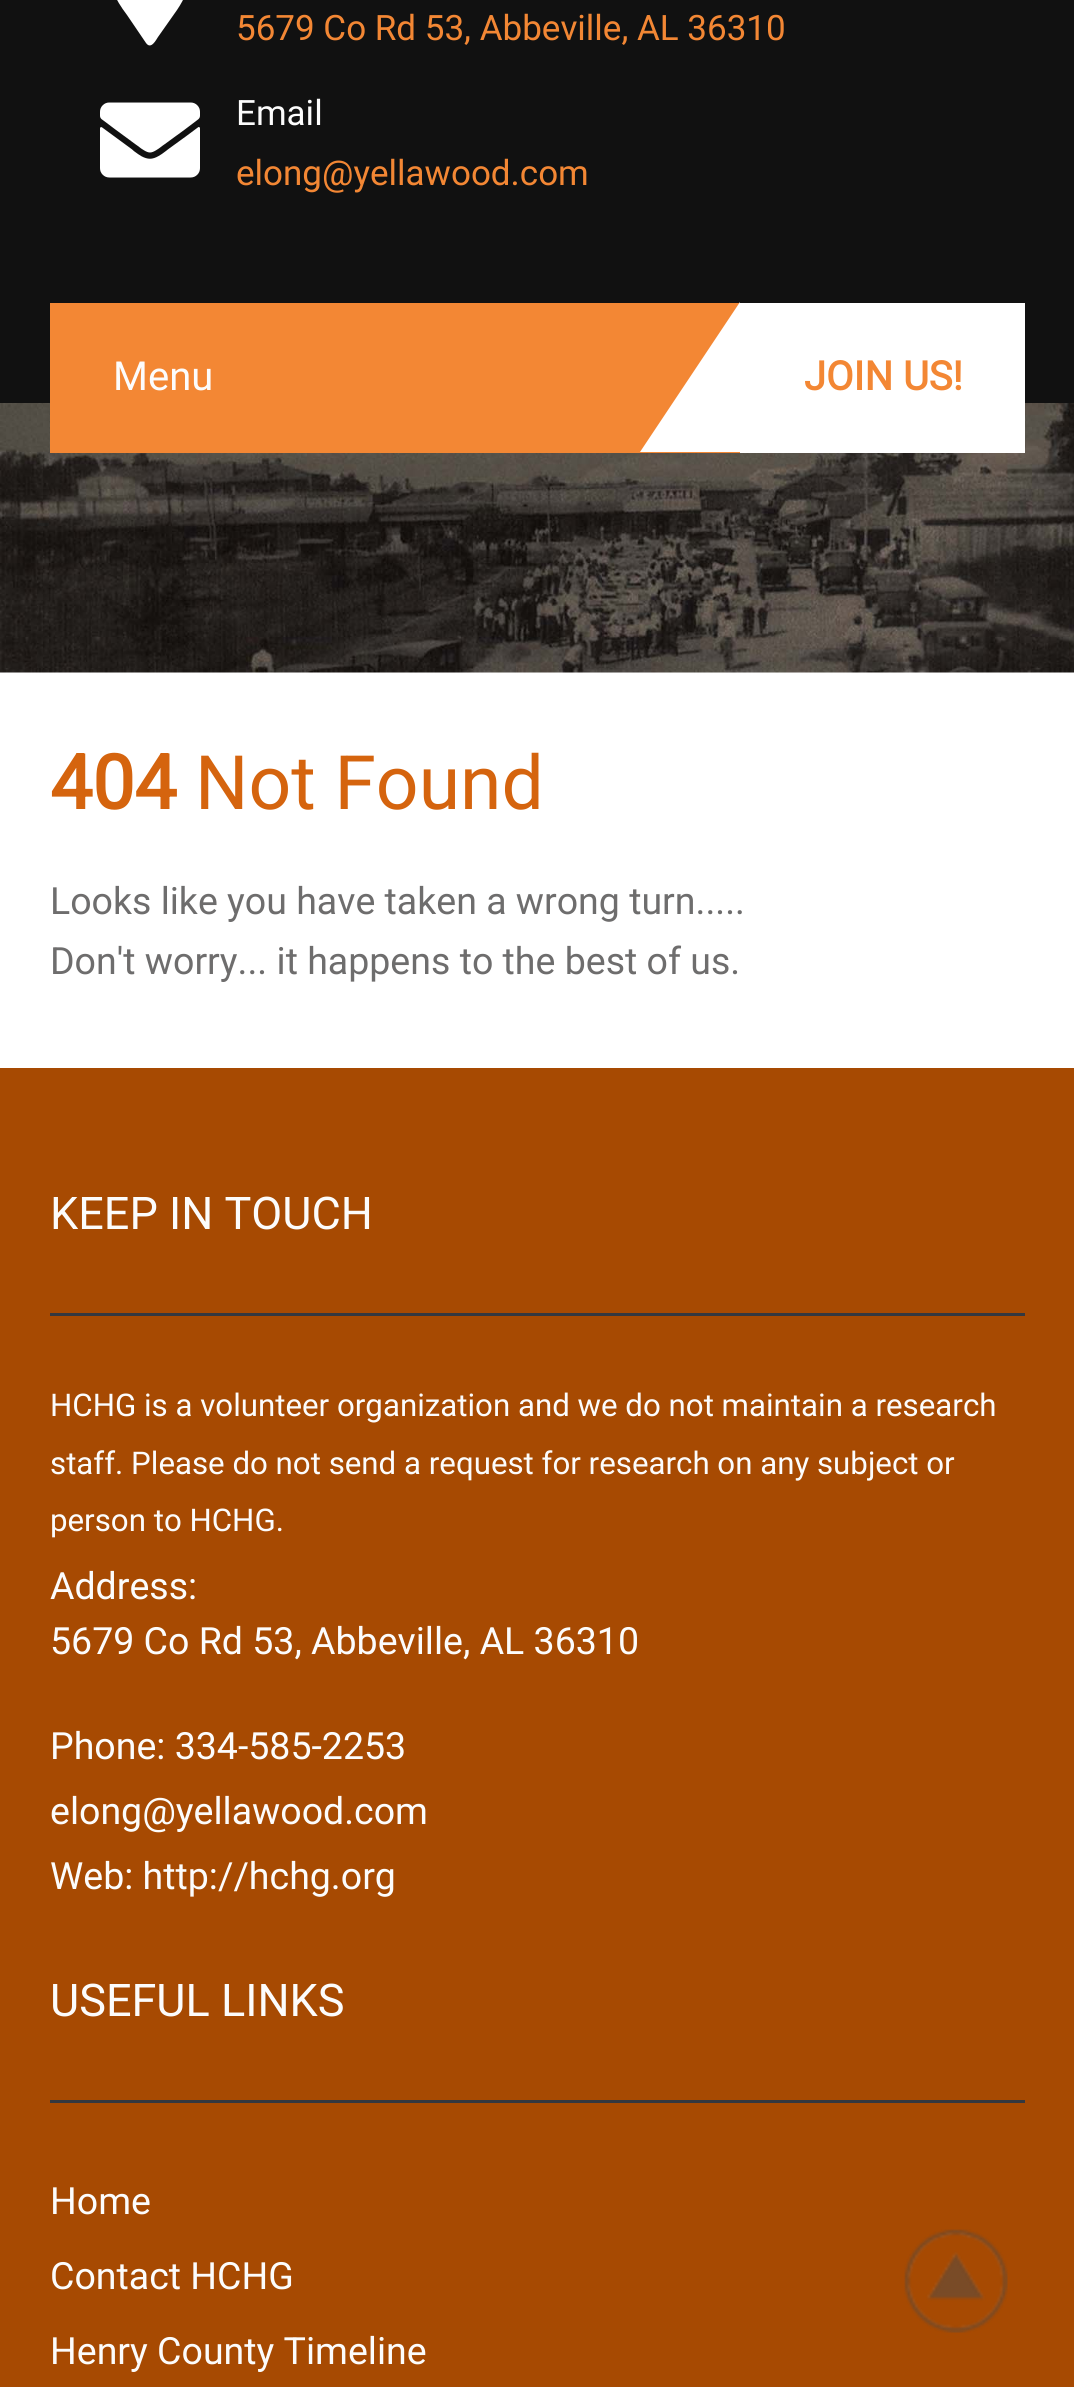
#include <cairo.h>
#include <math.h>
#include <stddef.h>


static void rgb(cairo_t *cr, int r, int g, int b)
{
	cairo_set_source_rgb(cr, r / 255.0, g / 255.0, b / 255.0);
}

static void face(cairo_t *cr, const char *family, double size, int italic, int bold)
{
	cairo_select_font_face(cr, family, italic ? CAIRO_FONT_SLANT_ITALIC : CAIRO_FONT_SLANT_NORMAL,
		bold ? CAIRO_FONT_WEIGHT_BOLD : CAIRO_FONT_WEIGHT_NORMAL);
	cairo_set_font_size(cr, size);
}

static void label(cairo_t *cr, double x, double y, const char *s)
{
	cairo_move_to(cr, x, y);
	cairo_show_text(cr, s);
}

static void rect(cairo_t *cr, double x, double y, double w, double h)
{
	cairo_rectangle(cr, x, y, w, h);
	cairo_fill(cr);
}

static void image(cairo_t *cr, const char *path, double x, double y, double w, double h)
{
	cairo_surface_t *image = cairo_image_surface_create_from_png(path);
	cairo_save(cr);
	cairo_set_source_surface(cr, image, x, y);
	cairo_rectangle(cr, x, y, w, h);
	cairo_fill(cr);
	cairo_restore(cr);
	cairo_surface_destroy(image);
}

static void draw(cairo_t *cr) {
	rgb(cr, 255, 255, 255);
	cairo_paint(cr);
	rgb(cr, 17, 17, 17);
	rect(cr, 0, 0, 1074, 403);
	rgb(cr, 255, 255, 255);
	cairo_new_path(cr);
	cairo_move_to(cr, 146, 43);
	cairo_line_to(cr, 127, 15);
	cairo_curve_to(cr, 115, -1, 106, -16, 118, -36);
	cairo_curve_to(cr, 122, -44, 129, -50, 138, -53);
	cairo_curve_to(cr, 150, -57, 163, -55, 173, -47);
	cairo_curve_to(cr, 179, -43, 183, -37, 186, -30);
	cairo_curve_to(cr, 191, -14, 185, -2, 177, 10);
	cairo_line_to(cr, 158, 37);
	cairo_curve_to(cr, 156, 40, 151, 50, 146, 43);
	cairo_close_path(cr);
	cairo_move_to(cr, 150, -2);
	cairo_curve_to(cr, 171, -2, 171, -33, 150, -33);
	cairo_curve_to(cr, 129, -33, 129, -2, 150, -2);
	cairo_close_path(cr);
	cairo_fill(cr);
	face(cr, "Roboto", 35, 0, 0);
	rgb(cr, 243, 135, 52);
	label(cr, 236, 40, "5679 Co Rd 53, Abbeville, AL 36310");
	image(cr, "image0.png", 100, 102, 100, 76);
	rgb(cr, 252, 252, 252);
	label(cr, 236, 125, "Email");
	rgb(cr, 243, 135, 52);
	label(cr, 236, 185, "elong@yellawood.com");
	image(cr, "image1.png", 0, 403, 1074, 270);
	rect(cr, 50, 303, 690, 150);
	face(cr, "Roboto", 40, 0, 0);
	rgb(cr, 252, 252, 252);
	label(cr, 113, 390, "Menu");
	rgb(cr, 255, 255, 255);
	rect(cr, 740, 303, 285, 150);
	cairo_new_path(cr);
	cairo_move_to(cr, 740, 302);
	cairo_line_to(cr, 740, 452);
	cairo_line_to(cr, 640, 452);
	cairo_close_path(cr);
	cairo_fill(cr);
	face(cr, "Roboto", 40, 0, 1);
	rgb(cr, 243, 135, 52);
	label(cr, 804, 390, "JOIN US!");
	face(cr, "Roboto", 75, 0, 1);
	rgb(cr, 213, 100, 14);
	label(cr, 50, 809, "404");
	face(cr, "Roboto", 75, 0, 0);
	label(cr, 195, 809, "Not Found");
	face(cr, "Roboto", 37.5, 0, 0);
	rgb(cr, 110, 109, 109);
	label(cr, 50, 914, "Looks like you have taken a wrong turn.....");
	label(cr, 50, 974, "Don't worry... it happens to the best of us.");
	rgb(cr, 167, 74, 2);
	rect(cr, 0, 1068, 1074, 1319);
	rgb(cr, 51, 56, 64);
	rect(cr, 50, 1313, 975, 3);
	face(cr, "Roboto", 45, 0, 0);
	rgb(cr, 252, 252, 252);
	label(cr, 50, 1229, "KEEP IN TOUCH");
	face(cr, "Roboto", 31.25, 0, 0);
	label(cr, 50, 1416, "HCHG is a volunteer organization and we do not maintain a research");
	label(cr, 50, 1474, "staff. Please do not send a request for research on any subject or");
	label(cr, 50, 1531, "person to HCHG.");
	face(cr, "Roboto", 37.5, 0, 0);
	label(cr, 50, 1599, "Address:");
	label(cr, 50, 1654, "5679 Co Rd 53, Abbeville, AL 36310");
	label(cr, 50, 1759, "Phone: 334-585-2253");
	label(cr, 50, 1824, "elong@yellawood.com");
	label(cr, 50, 1889, "Web: http://hchg.org");
	rgb(cr, 51, 56, 64);
	rect(cr, 50, 2100, 975, 3);
	face(cr, "Roboto", 45, 0, 0);
	rgb(cr, 252, 252, 252);
	label(cr, 50, 2016, "USEFUL LINKS");
	face(cr, "Roboto", 37.5, 0, 0);
	label(cr, 50, 2214, "Home");
	label(cr, 50, 2289, "Contact HCHG");
	label(cr, 50, 2364, "Henry County Timeline");
	image(cr, "image2.png", 904, 2229, 104, 104);
}

int main(void) {
	cairo_surface_t *surface = cairo_image_surface_create(CAIRO_FORMAT_RGB24, 1074, 2387);
	cairo_t *cr = cairo_create(surface);
	cairo_font_options_t *options = cairo_font_options_create();
	cairo_font_options_set_hint_metrics(options, CAIRO_HINT_METRICS_OFF);
	cairo_font_options_set_hint_style(options, CAIRO_HINT_STYLE_NONE);
	cairo_set_font_options(cr, options);
	cairo_set_miter_limit(cr, 4);
	draw(cr);
	cairo_surface_write_to_png(surface, "render.png");
	cairo_font_options_destroy(options);
	cairo_destroy(cr);
	cairo_surface_destroy(surface);
	return 0;
}
